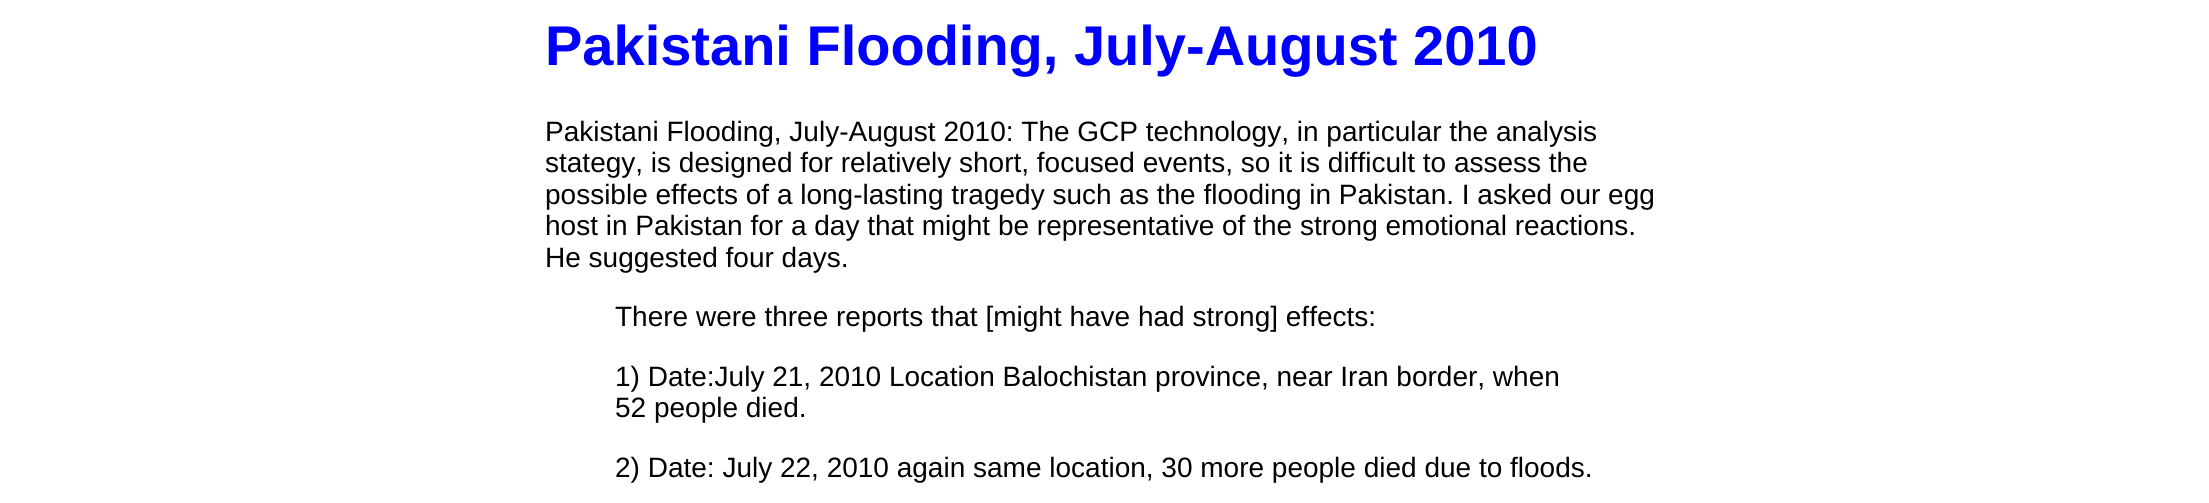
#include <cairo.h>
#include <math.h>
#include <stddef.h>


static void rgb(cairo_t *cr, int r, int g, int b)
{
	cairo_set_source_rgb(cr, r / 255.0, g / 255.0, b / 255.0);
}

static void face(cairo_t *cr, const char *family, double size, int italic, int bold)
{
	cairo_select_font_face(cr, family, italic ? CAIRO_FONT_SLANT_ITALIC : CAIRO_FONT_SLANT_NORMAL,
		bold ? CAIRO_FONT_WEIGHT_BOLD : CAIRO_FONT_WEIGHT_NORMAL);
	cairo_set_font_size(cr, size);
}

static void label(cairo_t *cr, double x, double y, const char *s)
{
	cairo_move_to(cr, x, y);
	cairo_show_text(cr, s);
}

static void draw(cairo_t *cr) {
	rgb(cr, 255, 255, 255);
	cairo_paint(cr);
	face(cr, "Liberation Sans", 56, 0, 1);
	rgb(cr, 0, 0, 255);
	label(cr, 545, 65, "Pakistani Flooding, July-August 2010");
	face(cr, "Liberation Sans", 28, 0, 0);
	rgb(cr, 0, 0, 0);
	label(cr, 545, 141, "Pakistani Flooding, July-August 2010: The GCP technology, in particular the analysis");
	label(cr, 545, 172, "stategy, is designed for relatively short, focused events, so it is difficult to assess the");
	label(cr, 545, 204, "possible effects of a long-lasting tragedy such as the flooding in Pakistan. I asked our egg");
	label(cr, 545, 235, "host in Pakistan for a day that might be representative of the strong emotional reactions.");
	label(cr, 545, 267, "He suggested four days.");
	label(cr, 615, 326, "There were three reports that [might have had strong] effects:");
	label(cr, 615, 386, "1) Date:July 21, 2010 Location Balochistan province, near Iran border, when");
	label(cr, 615, 417, "52 people died.");
	label(cr, 615, 477, "2) Date: July 22, 2010 again same location, 30 more people died due to floods.");
}

int main(void) {
	cairo_surface_t *surface = cairo_image_surface_create(CAIRO_FORMAT_RGB24, 2209, 503);
	cairo_t *cr = cairo_create(surface);
	cairo_font_options_t *options = cairo_font_options_create();
	cairo_font_options_set_hint_metrics(options, CAIRO_HINT_METRICS_OFF);
	cairo_font_options_set_hint_style(options, CAIRO_HINT_STYLE_NONE);
	cairo_set_font_options(cr, options);
	cairo_set_miter_limit(cr, 4);
	draw(cr);
	cairo_surface_write_to_png(surface, "render.png");
	cairo_font_options_destroy(options);
	cairo_destroy(cr);
	cairo_surface_destroy(surface);
	return 0;
}
